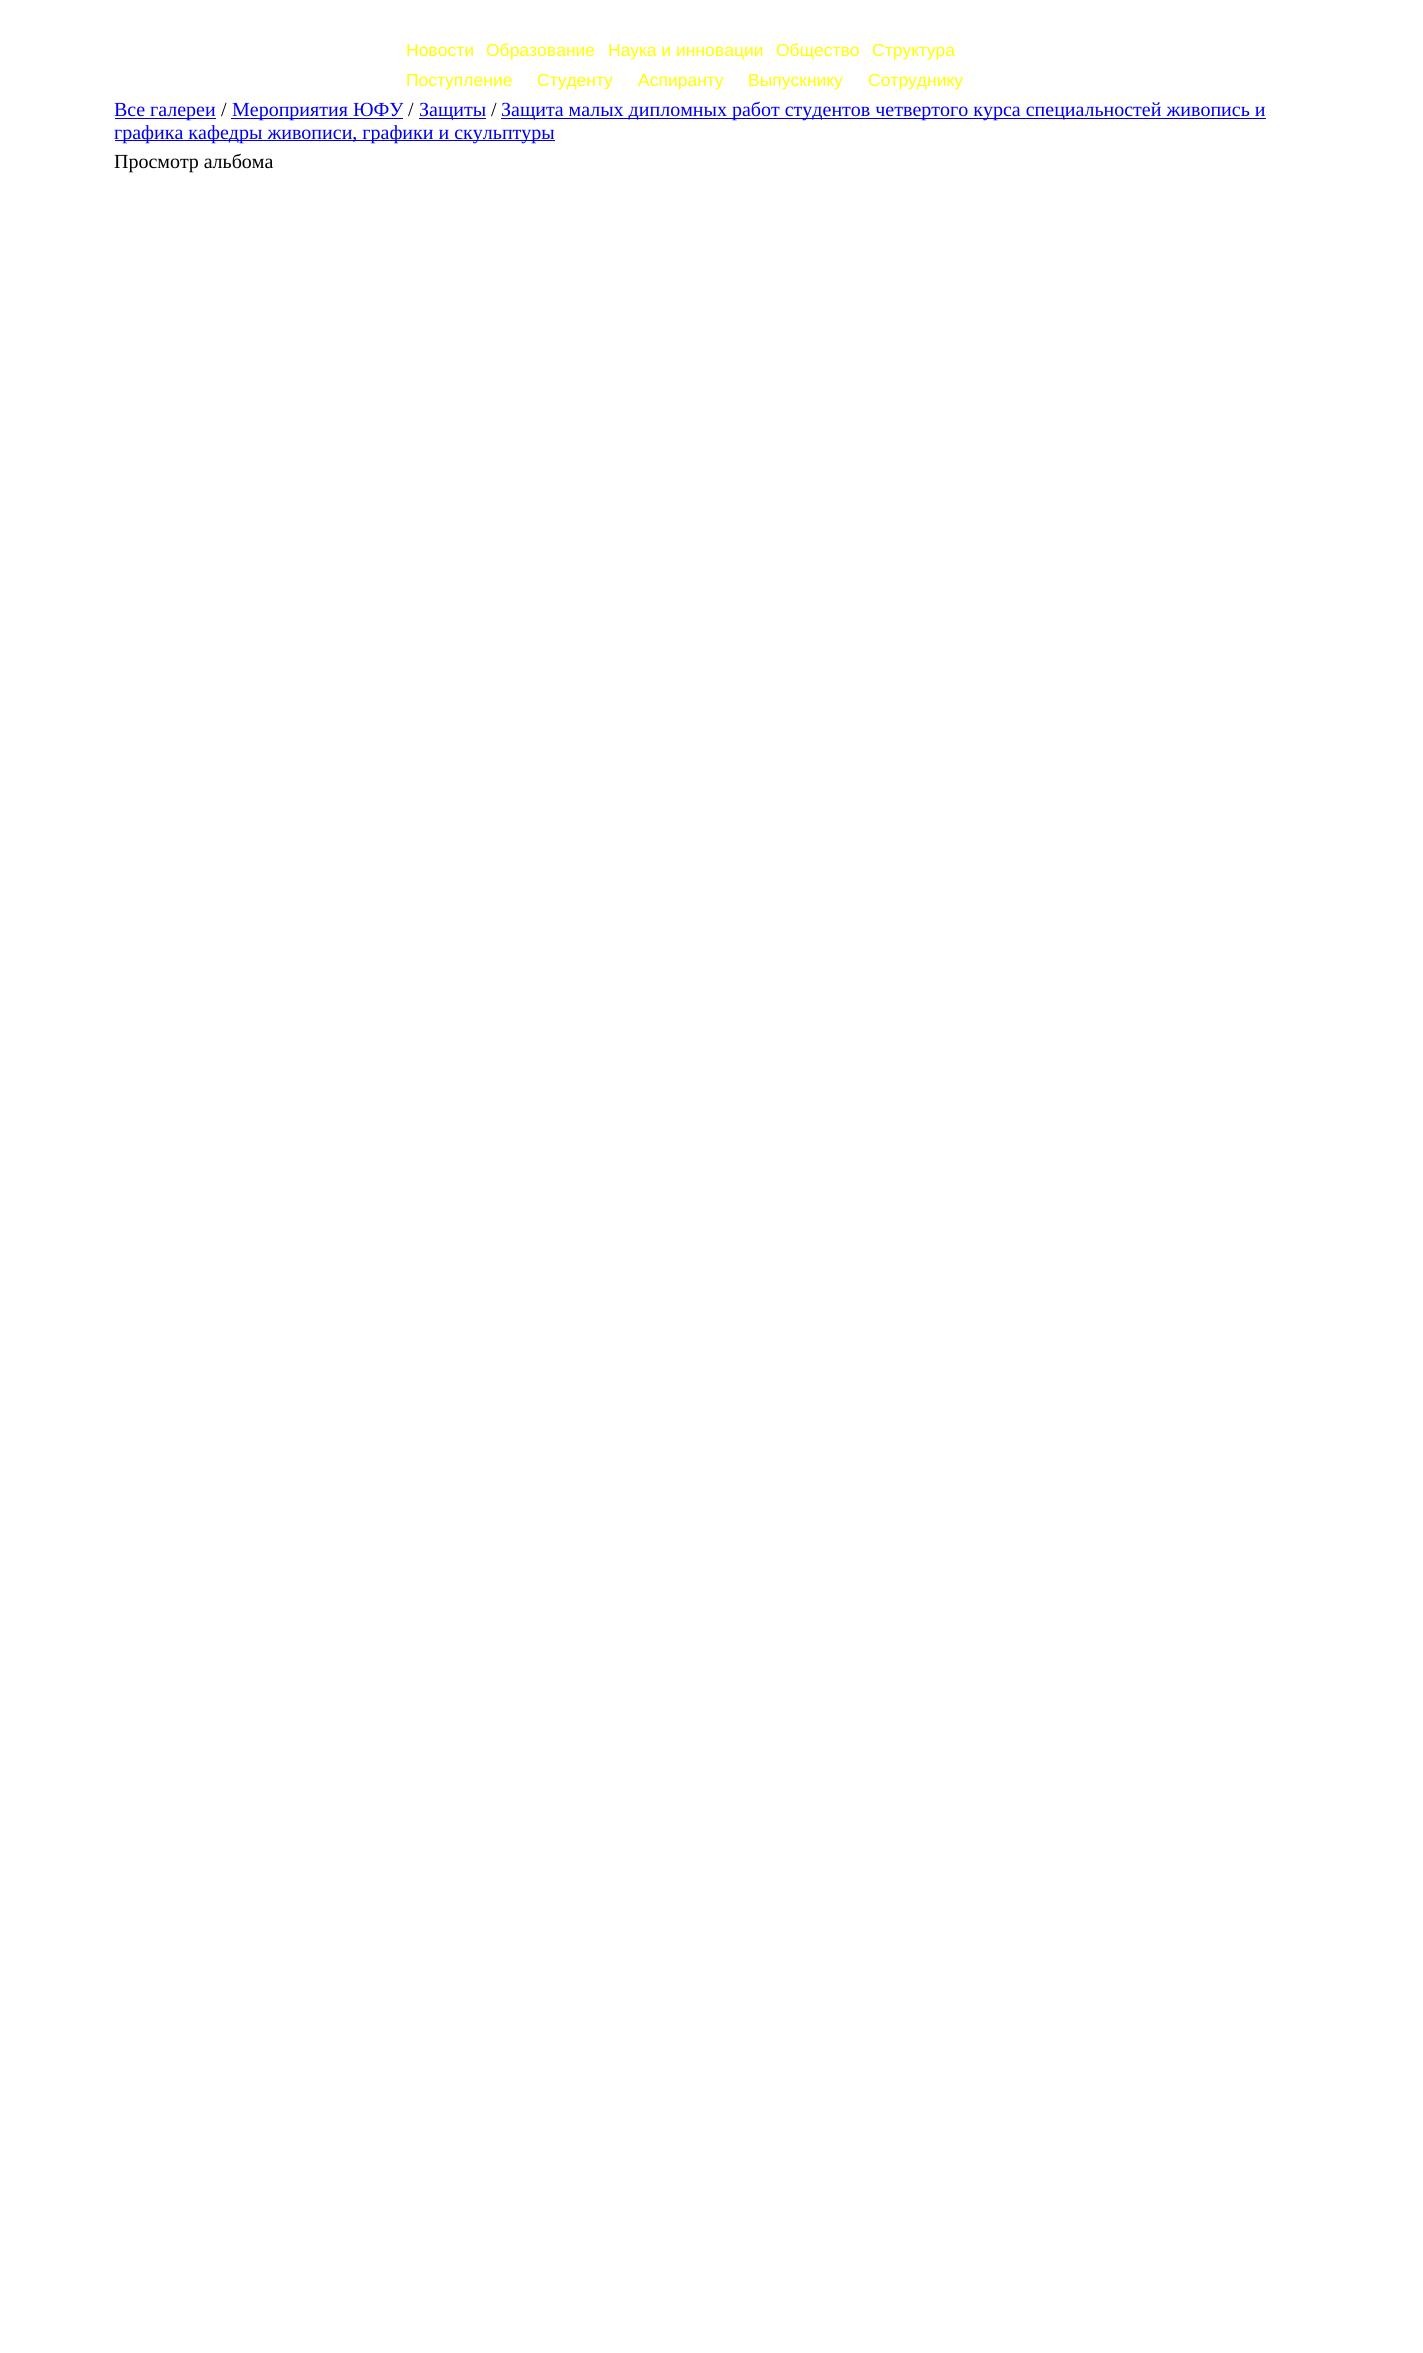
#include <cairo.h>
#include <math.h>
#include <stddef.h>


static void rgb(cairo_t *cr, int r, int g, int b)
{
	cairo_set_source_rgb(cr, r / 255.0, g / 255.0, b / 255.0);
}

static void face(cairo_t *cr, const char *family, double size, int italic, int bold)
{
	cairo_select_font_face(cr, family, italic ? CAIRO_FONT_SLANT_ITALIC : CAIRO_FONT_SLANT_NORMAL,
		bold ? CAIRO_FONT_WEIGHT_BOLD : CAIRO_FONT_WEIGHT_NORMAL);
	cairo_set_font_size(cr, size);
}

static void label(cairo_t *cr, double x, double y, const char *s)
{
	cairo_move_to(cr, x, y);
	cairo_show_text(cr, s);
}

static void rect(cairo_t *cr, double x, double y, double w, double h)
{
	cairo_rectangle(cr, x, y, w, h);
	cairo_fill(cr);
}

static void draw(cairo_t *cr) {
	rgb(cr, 255, 255, 255);
	cairo_paint(cr);
	face(cr, "Liberation Sans", 17.5, 0, 0);
	rgb(cr, 255, 255, 0);
	label(cr, 406, 56, "Новости");
	label(cr, 486, 56, "Образование");
	label(cr, 608, 56, "Наука и инновации");
	label(cr, 776, 56, "Общество");
	label(cr, 872, 56, "Структура");
	label(cr, 406, 86, "Поступление");
	label(cr, 537, 86, "Студенту");
	label(cr, 638, 86, "Аспиранту");
	label(cr, 748, 86, "Выпускнику");
	label(cr, 868, 86, "Сотруднику");
	rgb(cr, 0, 0, 238);
	rect(cr, 115, 118, 101, 1);
	face(cr, "Liberation Serif", 20, 0, 0);
	label(cr, 114, 116, "Все галереи");
	rgb(cr, 0, 0, 0);
	label(cr, 221, 116, "/");
	rgb(cr, 0, 0, 238);
	rect(cr, 231, 118, 172, 1);
	label(cr, 232, 116, "Мероприятия ЮФУ");
	rgb(cr, 0, 0, 0);
	label(cr, 408, 116, "/");
	rgb(cr, 0, 0, 238);
	rect(cr, 419, 118, 67, 1);
	label(cr, 419, 116, "Защиты");
	rgb(cr, 0, 0, 0);
	label(cr, 491, 116, "/");
	rgb(cr, 0, 0, 238);
	rect(cr, 501, 118, 765, 1);
	label(cr, 501, 116, "Защита малых дипломных работ студентов четвертого курса специальностей живопись и");
	rect(cr, 115, 140, 440, 1);
	label(cr, 114, 139, "графика кафедры живописи, графики и скульптуры");
	rgb(cr, 0, 0, 0);
	label(cr, 114, 168, "Просмотр альбома");
}

int main(void) {
	cairo_surface_t *surface = cairo_image_surface_create(CAIRO_FORMAT_RGB24, 1423, 2353);
	cairo_t *cr = cairo_create(surface);
	cairo_font_options_t *options = cairo_font_options_create();
	cairo_font_options_set_hint_metrics(options, CAIRO_HINT_METRICS_OFF);
	cairo_font_options_set_hint_style(options, CAIRO_HINT_STYLE_NONE);
	cairo_set_font_options(cr, options);
	cairo_set_miter_limit(cr, 4);
	draw(cr);
	cairo_surface_write_to_png(surface, "render.png");
	cairo_font_options_destroy(options);
	cairo_destroy(cr);
	cairo_surface_destroy(surface);
	return 0;
}
